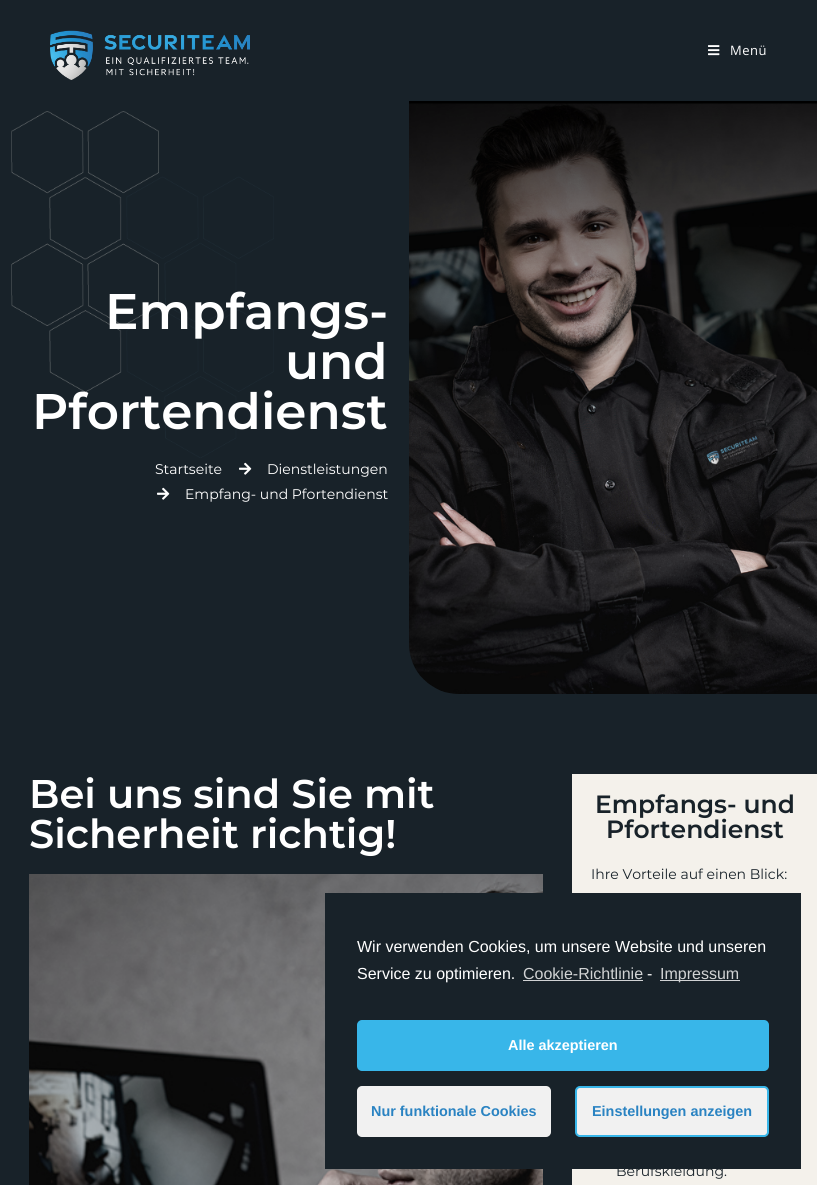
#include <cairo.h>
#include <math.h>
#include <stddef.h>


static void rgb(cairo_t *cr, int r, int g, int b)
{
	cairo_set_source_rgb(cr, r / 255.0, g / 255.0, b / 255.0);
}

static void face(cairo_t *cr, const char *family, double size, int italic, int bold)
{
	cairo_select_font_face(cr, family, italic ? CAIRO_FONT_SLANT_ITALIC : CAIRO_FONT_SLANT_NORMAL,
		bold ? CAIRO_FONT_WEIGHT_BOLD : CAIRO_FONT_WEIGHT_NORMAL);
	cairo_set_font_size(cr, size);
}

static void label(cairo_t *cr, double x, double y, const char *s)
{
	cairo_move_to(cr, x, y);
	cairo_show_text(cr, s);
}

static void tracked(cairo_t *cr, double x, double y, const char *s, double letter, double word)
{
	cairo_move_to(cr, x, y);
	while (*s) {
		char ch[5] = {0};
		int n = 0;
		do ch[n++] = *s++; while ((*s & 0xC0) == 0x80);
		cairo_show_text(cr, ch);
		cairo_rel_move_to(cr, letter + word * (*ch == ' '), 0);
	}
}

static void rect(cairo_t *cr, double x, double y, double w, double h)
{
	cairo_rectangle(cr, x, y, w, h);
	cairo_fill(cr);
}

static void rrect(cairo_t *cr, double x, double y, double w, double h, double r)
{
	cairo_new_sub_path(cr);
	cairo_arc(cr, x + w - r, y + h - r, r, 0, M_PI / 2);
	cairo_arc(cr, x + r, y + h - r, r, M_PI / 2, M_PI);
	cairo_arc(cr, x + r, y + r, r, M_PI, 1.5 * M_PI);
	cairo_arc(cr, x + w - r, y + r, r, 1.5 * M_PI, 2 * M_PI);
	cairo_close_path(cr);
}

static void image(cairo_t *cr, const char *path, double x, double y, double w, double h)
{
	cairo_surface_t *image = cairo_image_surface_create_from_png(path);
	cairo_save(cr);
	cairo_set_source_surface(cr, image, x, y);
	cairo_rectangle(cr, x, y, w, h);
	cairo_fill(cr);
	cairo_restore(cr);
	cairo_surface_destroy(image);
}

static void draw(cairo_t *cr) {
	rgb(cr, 24, 34, 41);
	cairo_paint(cr);
	image(cr, "image0.png", 50, 30, 200, 50);
	image(cr, "image1.png", 708, 45, 12, 11);
	face(cr, "Open Sans", 13, 0, 0);
	rgb(cr, 255, 255, 255);
	tracked(cr, 730, 55, "Menü", 0.5, 0);
	image(cr, "image2.png", 11, 111, 263, 347);
	face(cr, "Montserrat SemiBold", 50, 0, 0);
	label(cr, 105, 329, "Empfangs-");
	label(cr, 285, 379, "und");
	label(cr, 32, 429, "Pfortendienst");
	face(cr, "Montserrat", 14, 0, 0);
	label(cr, 155, 474, "Startseite");
	image(cr, "image3.png", 239, 462, 13, 13);
	label(cr, 267, 474, "Dienstleistungen");
	image(cr, "image3.png", 157, 487, 13, 13);
	label(cr, 185, 499, "Empfang- und Pfortendienst");
	image(cr, "image4.png", 409, 101, 408, 593);
	face(cr, "Montserrat SemiBold", 40, 0, 0);
	label(cr, 29, 808, "Bei uns sind Sie mit");
	label(cr, 29, 848, "Sicherheit richtig!");
	image(cr, "image5.png", 29, 874, 514, 311);
	rgb(cr, 244, 241, 235);
	rect(cr, 572, 774, 245, 411);
	face(cr, "Montserrat SemiBold", 25, 0, 0);
	rgb(cr, 24, 34, 41);
	label(cr, 595, 813, "Empfangs- und");
	label(cr, 606, 838, "Pfortendienst");
	face(cr, "Montserrat", 14, 0, 0);
	label(cr, 591, 879, "Ihre Vorteile auf einen Blick:");
	label(cr, 616, 1176, "Berufskleidung.");
	rect(cr, 325, 893, 476, 276);
	face(cr, "Liberation Sans", 16, 0, 0);
	rgb(cr, 255, 255, 255);
	label(cr, 357, 952, "Wir verwenden Cookies, um unsere Website und unseren");
	label(cr, 357, 979, "Service zu optimieren.");
	rgb(cr, 209, 211, 212);
	label(cr, 523, 979, "Cookie-Richtlinie");
	rect(cr, 523, 980, 120, 1);
	rgb(cr, 255, 255, 255);
	label(cr, 647, 979, "-");
	rgb(cr, 209, 211, 212);
	rect(cr, 660, 980, 80, 1);
	label(cr, 660, 979, "Impressum");
	rgb(cr, 56, 182, 233);
	rrect(cr, 358, 1021, 410, 49, 4);
	cairo_fill_preserve(cr);
	cairo_stroke(cr);
	face(cr, "Liberation Sans", 14.4, 0, 1);
	rgb(cr, 255, 255, 255);
	label(cr, 508, 1050, "Alle akzeptieren");
	rgb(cr, 241, 241, 241);
	rrect(cr, 358, 1087, 192, 49, 4);
	cairo_fill_preserve(cr);
	cairo_stroke(cr);
	rgb(cr, 42, 131, 194);
	label(cr, 371, 1116, "Nur funktionale Cookies");
	rgb(cr, 241, 241, 241);
	rrect(cr, 576, 1087, 192, 49, 4);
	cairo_fill_preserve(cr);
	rgb(cr, 56, 182, 233);
	cairo_stroke(cr);
	rgb(cr, 42, 131, 194);
	label(cr, 592, 1116, "Einstellungen anzeigen");
}

int main(void) {
	cairo_surface_t *surface = cairo_image_surface_create(CAIRO_FORMAT_RGB24, 817, 1185);
	cairo_t *cr = cairo_create(surface);
	cairo_font_options_t *options = cairo_font_options_create();
	cairo_font_options_set_hint_metrics(options, CAIRO_HINT_METRICS_OFF);
	cairo_font_options_set_hint_style(options, CAIRO_HINT_STYLE_NONE);
	cairo_set_font_options(cr, options);
	cairo_set_miter_limit(cr, 4);
	draw(cr);
	cairo_surface_write_to_png(surface, "render.png");
	cairo_font_options_destroy(options);
	cairo_destroy(cr);
	cairo_surface_destroy(surface);
	return 0;
}
